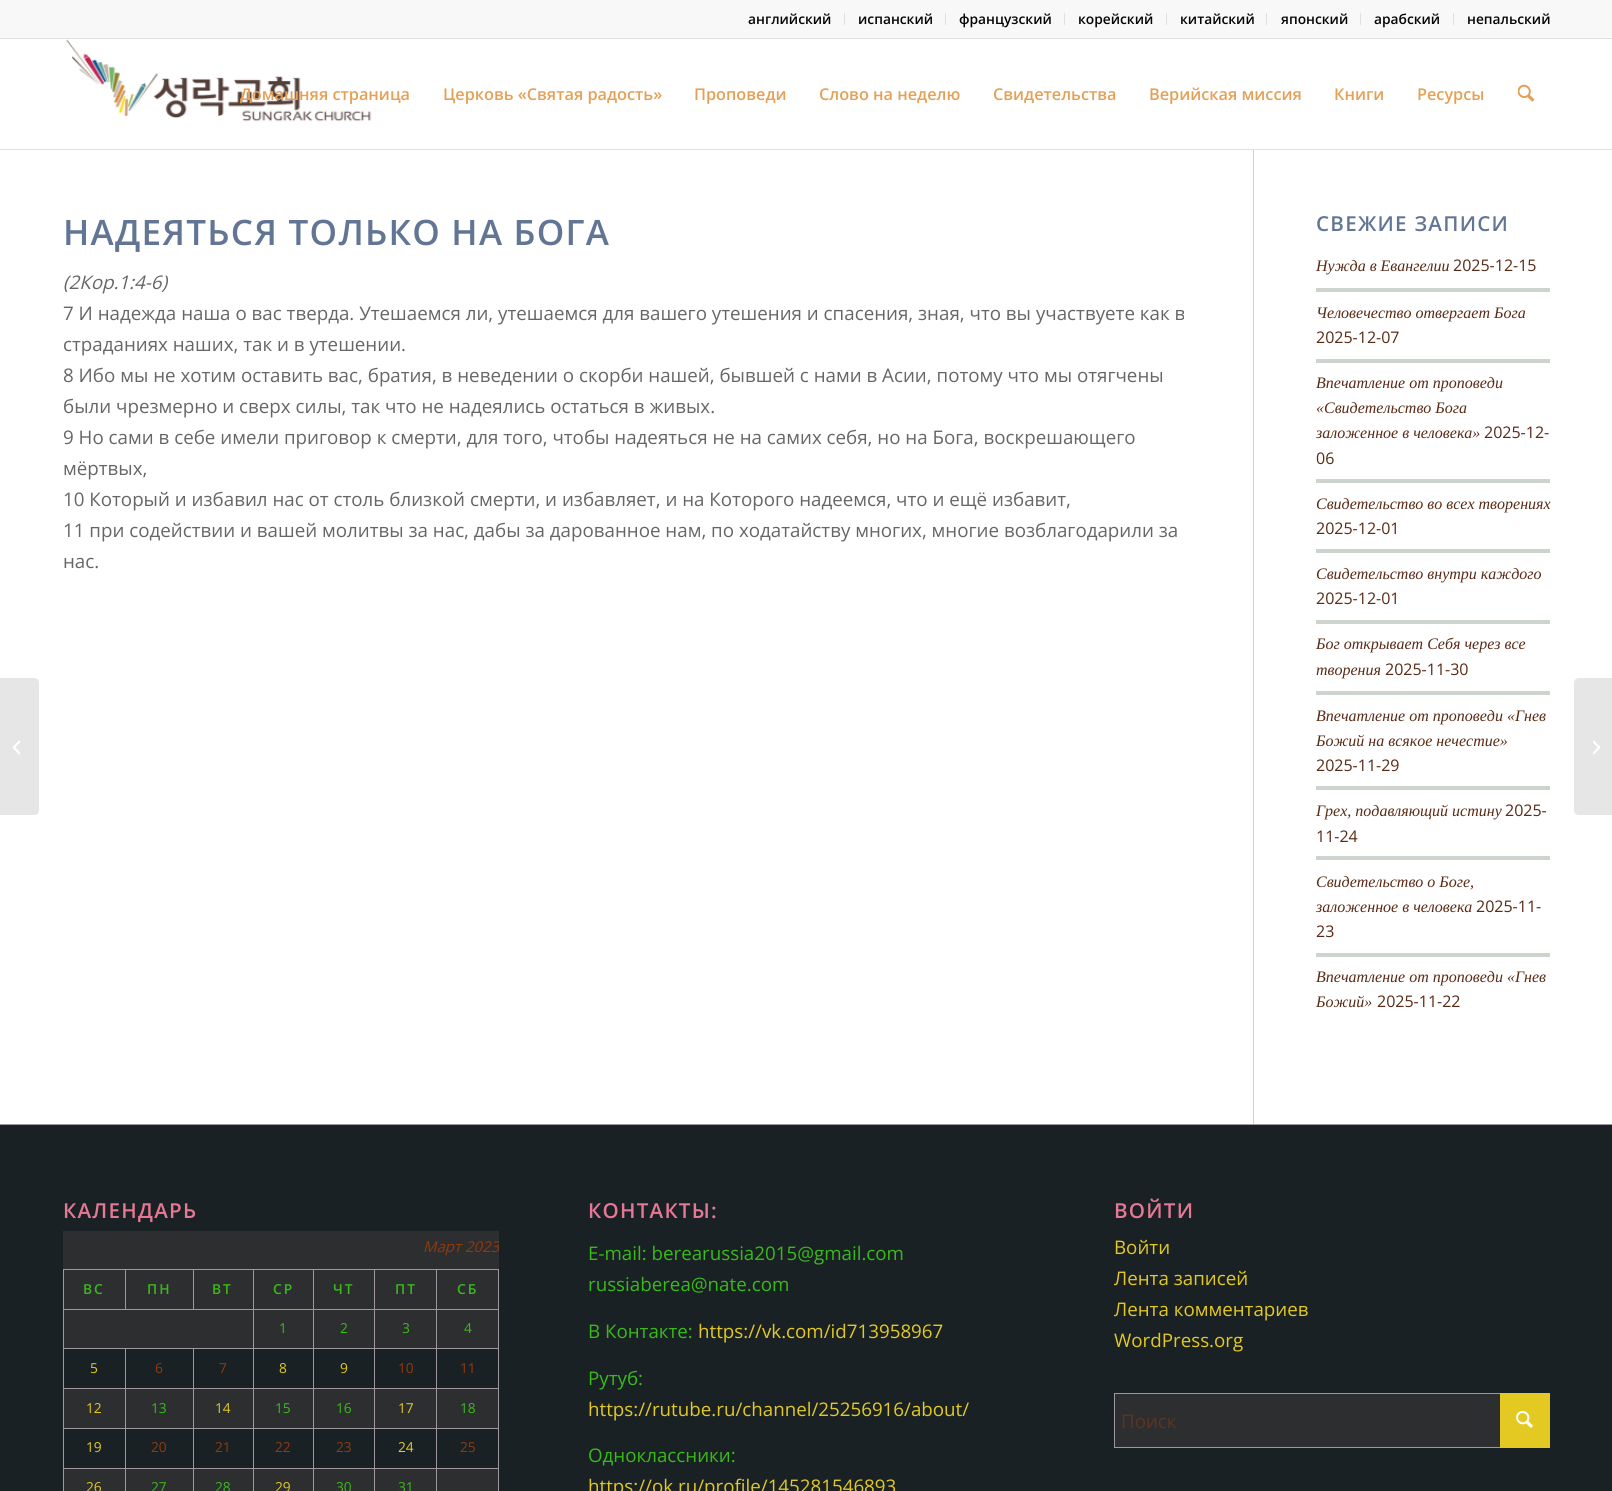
#include <cairo.h>
#include <math.h>
#include <stddef.h>


static void rgb(cairo_t *cr, int r, int g, int b)
{
	cairo_set_source_rgb(cr, r / 255.0, g / 255.0, b / 255.0);
}

static void face(cairo_t *cr, const char *family, double size, int italic, int bold)
{
	cairo_select_font_face(cr, family, italic ? CAIRO_FONT_SLANT_ITALIC : CAIRO_FONT_SLANT_NORMAL,
		bold ? CAIRO_FONT_WEIGHT_BOLD : CAIRO_FONT_WEIGHT_NORMAL);
	cairo_set_font_size(cr, size);
}

static void label(cairo_t *cr, double x, double y, const char *s)
{
	cairo_move_to(cr, x, y);
	cairo_show_text(cr, s);
}

static void tracked(cairo_t *cr, double x, double y, const char *s, double letter, double word)
{
	cairo_move_to(cr, x, y);
	while (*s) {
		char ch[5] = {0};
		int n = 0;
		do ch[n++] = *s++; while ((*s & 0xC0) == 0x80);
		cairo_show_text(cr, ch);
		cairo_rel_move_to(cr, letter + word * (*ch == ' '), 0);
	}
}

static void rect(cairo_t *cr, double x, double y, double w, double h)
{
	cairo_rectangle(cr, x, y, w, h);
	cairo_fill(cr);
}

static void image(cairo_t *cr, const char *path, double x, double y, double w, double h)
{
	cairo_surface_t *image = cairo_image_surface_create_from_png(path);
	cairo_save(cr);
	cairo_set_source_surface(cr, image, x, y);
	cairo_rectangle(cr, x, y, w, h);
	cairo_fill(cr);
	cairo_restore(cr);
	cairo_surface_destroy(image);
}

static void draw(cairo_t *cr) {
	rgb(cr, 255, 255, 255);
	cairo_paint(cr);
	rgb(cr, 248, 248, 248);
	rect(cr, 0, 0, 1612, 38);
	rgb(cr, 225, 225, 225);
	rect(cr, 0, 38, 1612, 1);
	rect(cr, 844, 13, 1, 12);
	face(cr, "Open Sans SemiBold", 13.75, 0, 0);
	rgb(cr, 5, 5, 5);
	label(cr, 748, 24, "английский");
	rgb(cr, 225, 225, 225);
	rect(cr, 945, 13, 1, 12);
	rgb(cr, 5, 5, 5);
	label(cr, 858, 24, "испанский");
	rgb(cr, 225, 225, 225);
	rect(cr, 1064, 13, 1, 12);
	rgb(cr, 5, 5, 5);
	label(cr, 959, 24, "французский");
	rgb(cr, 225, 225, 225);
	rect(cr, 1166, 13, 1, 12);
	rgb(cr, 5, 5, 5);
	label(cr, 1078, 24, "корейский");
	rgb(cr, 225, 225, 225);
	rect(cr, 1266, 13, 1, 12);
	rgb(cr, 5, 5, 5);
	label(cr, 1180, 24, "китайский");
	rgb(cr, 225, 225, 225);
	rect(cr, 1360, 13, 1, 12);
	rgb(cr, 5, 5, 5);
	label(cr, 1281, 24, "японский");
	rgb(cr, 225, 225, 225);
	rect(cr, 1453, 13, 1, 12);
	rgb(cr, 5, 5, 5);
	label(cr, 1374, 24, "арабский");
	label(cr, 1467, 24, "непальский");
	rgb(cr, 225, 225, 225);
	rect(cr, 0, 149, 1612, 1);
	image(cr, "image0.png", 63, 39, 317, 83);
	face(cr, "Open Sans SemiBold", 16.25, 0, 0);
	rgb(cr, 230, 160, 85);
	label(cr, 240, 100, "Домашняя страница");
	label(cr, 443, 100, "Церковь «Святая радость»");
	label(cr, 694, 100, "Проповеди");
	label(cr, 819, 100, "Слово на неделю");
	label(cr, 993, 100, "Свидетельства");
	label(cr, 1149, 100, "Верийская миссия");
	label(cr, 1334, 100, "Книги");
	label(cr, 1417, 100, "Ресурсы");
	image(cr, "image1.png", 1518, 84, 16, 18);
	rgb(cr, 230, 230, 230);
	cairo_new_path(cr);
	cairo_move_to(cr, 0, 678);
	cairo_line_to(cr, 34, 678);
	cairo_curve_to(cr, 37, 678, 39, 680, 39, 683);
	cairo_line_to(cr, 39, 810);
	cairo_curve_to(cr, 39, 813, 37, 815, 34, 815);
	cairo_line_to(cr, 0, 815);
	cairo_close_path(cr);
	cairo_fill(cr);
	image(cr, "image2.png", 13, 740, 7, 15);
	face(cr, "Open Sans SemiBold", 35, 0, 0);
	rgb(cr, 98, 117, 148);
	tracked(cr, 63, 245, "НАДЕЯТЬСЯ ТОЛЬКО НА БОГА", 1.25, 0);
	face(cr, "Open Sans", 18.75, 1, 0);
	rgb(cr, 102, 102, 102);
	label(cr, 63, 289, "(2Кор.1:4-6)");
	face(cr, "Open Sans", 18.75, 0, 0);
	label(cr, 63, 320, "7 И надежда наша о вас тверда. Утешаемся ли, утешаемся для вашего утешения и спасения, зная, что вы участвуете как в");
	label(cr, 63, 351, "страданиях наших, так и в утешении.");
	label(cr, 63, 382, "8 Ибо мы не хотим оставить вас, братия, в неведении о скорби нашей, бывшей с нами в Асии, потому что мы отягчены");
	label(cr, 63, 413, "были чрезмерно и сверх силы, так что не надеялись остаться в живых.");
	label(cr, 63, 444, "9 Но сами в себе имели приговор к смерти, для того, чтобы надеяться не на самих себя, но на Бога, воскрешающего");
	label(cr, 63, 475, "мёртвых,");
	label(cr, 63, 506, "10 Который и избавил нас от столь близкой смерти, и избавляет, и на Которого надеемся, что и ещё избавит,");
	label(cr, 63, 537, "11 при содействии и вашей молитвы за нас, дабы за дарованное нам, по ходатайству многих, многие возблагодарили за");
	label(cr, 63, 568, "нас.");
	rgb(cr, 205, 212, 205);
	rect(cr, 1253, 150, 1, 974);
	face(cr, "Open Sans SemiBold", 20.6, 0, 0);
	rgb(cr, 98, 117, 148);
	tracked(cr, 1316, 231, "СВЕЖИЕ ЗАПИСИ", 1.25, 0);
	face(cr, "Liberation Serif", 16, 1, 0);
	rgb(cr, 89, 42, 21);
	label(cr, 1316, 271, "Нужда в Евангелии");
	face(cr, "Open Sans", 16, 0, 0);
	label(cr, 1453, 271, "2025-12-15");
	rgb(cr, 205, 212, 205);
	rect(cr, 1316, 288, 234, 4);
	face(cr, "Liberation Serif", 16, 1, 0);
	rgb(cr, 89, 42, 21);
	label(cr, 1316, 318, "Человечество отвергает Бога");
	face(cr, "Open Sans", 16, 0, 0);
	label(cr, 1316, 343, "2025-12-07");
	rgb(cr, 205, 212, 205);
	rect(cr, 1316, 359, 234, 4);
	face(cr, "Liberation Serif", 16, 1, 0);
	rgb(cr, 89, 42, 21);
	label(cr, 1316, 388, "Впечатление от проповеди");
	label(cr, 1316, 413, "«Свидетельство Бога");
	label(cr, 1316, 438, "заложенное в человека»");
	face(cr, "Open Sans", 16, 0, 0);
	label(cr, 1484, 438, "2025-12-");
	label(cr, 1316, 464, "06");
	rgb(cr, 205, 212, 205);
	rect(cr, 1316, 479, 234, 4);
	face(cr, "Liberation Serif", 16, 1, 0);
	rgb(cr, 89, 42, 21);
	label(cr, 1316, 509, "Свидетельство во всех творениях");
	face(cr, "Open Sans", 16, 0, 0);
	label(cr, 1316, 534, "2025-12-01");
	rgb(cr, 205, 212, 205);
	rect(cr, 1316, 549, 234, 4);
	face(cr, "Liberation Serif", 16, 1, 0);
	rgb(cr, 89, 42, 21);
	label(cr, 1316, 579, "Свидетельство внутри каждого");
	face(cr, "Open Sans", 16, 0, 0);
	label(cr, 1316, 604, "2025-12-01");
	rgb(cr, 205, 212, 205);
	rect(cr, 1316, 620, 234, 4);
	face(cr, "Liberation Serif", 16, 1, 0);
	rgb(cr, 89, 42, 21);
	label(cr, 1316, 649, "Бог открывает Себя через все");
	label(cr, 1316, 675, "творения");
	face(cr, "Open Sans", 16, 0, 0);
	label(cr, 1385, 675, "2025-11-30");
	rgb(cr, 205, 212, 205);
	rect(cr, 1316, 691, 234, 4);
	face(cr, "Liberation Serif", 16, 1, 0);
	rgb(cr, 89, 42, 21);
	label(cr, 1316, 721, "Впечатление от проповеди «Гнев");
	label(cr, 1316, 746, "Божий на всякое нечестие»");
	face(cr, "Open Sans", 16, 0, 0);
	label(cr, 1316, 771, "2025-11-29");
	rgb(cr, 205, 212, 205);
	rect(cr, 1316, 786, 234, 4);
	face(cr, "Liberation Serif", 16, 1, 0);
	rgb(cr, 89, 42, 21);
	label(cr, 1316, 816, "Грех, подавляющий истину");
	face(cr, "Open Sans", 16, 0, 0);
	label(cr, 1505, 816, "2025-");
	label(cr, 1316, 842, "11-24");
	rgb(cr, 205, 212, 205);
	rect(cr, 1316, 856, 234, 4);
	face(cr, "Liberation Serif", 16, 1, 0);
	rgb(cr, 89, 42, 21);
	label(cr, 1316, 887, "Свидетельство о Боге,");
	label(cr, 1316, 912, "заложенное в человека");
	face(cr, "Open Sans", 16, 0, 0);
	label(cr, 1476, 912, "2025-11-");
	label(cr, 1316, 937, "23");
	rgb(cr, 205, 212, 205);
	rect(cr, 1316, 953, 234, 4);
	face(cr, "Liberation Serif", 16, 1, 0);
	rgb(cr, 89, 42, 21);
	label(cr, 1316, 982, "Впечатление от проповеди «Гнев");
	label(cr, 1316, 1007, "Божий»");
	face(cr, "Open Sans", 16, 0, 0);
	label(cr, 1377, 1007, "2025-11-22");
	rgb(cr, 25, 33, 36);
	rect(cr, 0, 1125, 1612, 366);
	rgb(cr, 158, 152, 158);
	rect(cr, 0, 1124, 1612, 1);
	face(cr, "Open Sans SemiBold", 20.6, 0, 0);
	rgb(cr, 230, 120, 149);
	tracked(cr, 63, 1218, "КАЛЕНДАРЬ", 1.25, 0);
	rgb(cr, 44, 46, 48);
	rect(cr, 63, 1231, 436, 260);
	cairo_save(cr);
	cairo_rectangle(cr, 63, 1181, 436, 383);
	cairo_clip(cr);
	face(cr, "Open Sans", 15, 1, 0);
	rgb(cr, 143, 58, 13);
	label(cr, 423, 1252, "Март 2023");
	cairo_restore(cr);
	rgb(cr, 158, 152, 158);
	rect(cr, 63, 1269, 436, 1);
	rect(cr, 63, 1309, 436, 1);
	rect(cr, 125, 1269, 1, 41);
	rect(cr, 498, 1348, 1, 143);
	rect(cr, 498, 1309, 1, 40);
	rgb(cr, 25, 33, 36);
	rect(cr, 64, 1349, 434, 39);
	rect(cr, 64, 1429, 434, 39);
	rgb(cr, 158, 152, 158);
	rect(cr, 436, 1468, 1, 23);
	rect(cr, 436, 1468, 63, 1);
	rect(cr, 436, 1428, 1, 41);
	rect(cr, 436, 1428, 63, 1);
	rect(cr, 436, 1388, 1, 41);
	rect(cr, 436, 1388, 63, 1);
	rect(cr, 436, 1348, 1, 41);
	rect(cr, 436, 1348, 63, 1);
	rect(cr, 436, 1309, 1, 40);
	rect(cr, 374, 1468, 1, 23);
	rect(cr, 374, 1468, 64, 1);
	rect(cr, 374, 1428, 1, 41);
	rect(cr, 374, 1428, 64, 1);
	rect(cr, 374, 1388, 1, 41);
	rect(cr, 374, 1388, 64, 1);
	rect(cr, 374, 1348, 1, 41);
	rect(cr, 374, 1348, 64, 1);
	rect(cr, 374, 1309, 1, 40);
	rect(cr, 313, 1468, 1, 23);
	rect(cr, 313, 1468, 62, 1);
	rect(cr, 313, 1428, 1, 41);
	rect(cr, 313, 1428, 62, 1);
	rect(cr, 313, 1388, 1, 41);
	rect(cr, 313, 1388, 62, 1);
	rect(cr, 313, 1348, 1, 41);
	rect(cr, 313, 1348, 62, 1);
	rect(cr, 313, 1309, 1, 40);
	rect(cr, 253, 1468, 1, 23);
	rect(cr, 253, 1468, 61, 1);
	rect(cr, 253, 1428, 1, 41);
	rect(cr, 253, 1428, 61, 1);
	rect(cr, 253, 1388, 1, 41);
	rect(cr, 253, 1388, 61, 1);
	rect(cr, 253, 1348, 1, 41);
	rect(cr, 253, 1348, 61, 1);
	rect(cr, 253, 1309, 1, 40);
	rect(cr, 193, 1468, 1, 23);
	rect(cr, 193, 1468, 61, 1);
	rect(cr, 193, 1428, 1, 41);
	rect(cr, 193, 1428, 61, 1);
	rect(cr, 193, 1388, 1, 41);
	rect(cr, 193, 1388, 61, 1);
	rect(cr, 193, 1348, 1, 41);
	rect(cr, 125, 1468, 1, 23);
	rect(cr, 125, 1468, 69, 1);
	rect(cr, 125, 1428, 1, 41);
	rect(cr, 125, 1428, 69, 1);
	rect(cr, 125, 1388, 1, 41);
	rect(cr, 125, 1388, 69, 1);
	rect(cr, 125, 1348, 1, 41);
	rect(cr, 63, 1468, 1, 23);
	rect(cr, 63, 1468, 63, 1);
	rect(cr, 63, 1428, 1, 41);
	rect(cr, 63, 1428, 63, 1);
	rect(cr, 63, 1388, 1, 41);
	rect(cr, 63, 1388, 63, 1);
	rect(cr, 63, 1348, 1, 41);
	rect(cr, 63, 1348, 191, 1);
	rect(cr, 63, 1309, 1, 40);
	rect(cr, 63, 1269, 1, 41);
	face(cr, "Open Sans SemiBold", 13.75, 0, 0);
	rgb(cr, 58, 186, 26);
	tracked(cr, 83, 1294, "ВС", 2, 0);
	rgb(cr, 158, 152, 158);
	rect(cr, 193, 1269, 1, 41);
	rgb(cr, 58, 186, 26);
	tracked(cr, 147, 1294, "ПН", 2, 0);
	rgb(cr, 158, 152, 158);
	rect(cr, 253, 1269, 1, 41);
	rgb(cr, 58, 186, 26);
	tracked(cr, 212, 1294, "ВТ", 2, 0);
	rgb(cr, 158, 152, 158);
	rect(cr, 313, 1269, 1, 41);
	rgb(cr, 58, 186, 26);
	tracked(cr, 273, 1294, "СР", 2, 0);
	rgb(cr, 158, 152, 158);
	rect(cr, 374, 1269, 1, 41);
	rgb(cr, 58, 186, 26);
	tracked(cr, 333, 1294, "ЧТ", 2, 0);
	rgb(cr, 158, 152, 158);
	rect(cr, 436, 1269, 1, 41);
	rgb(cr, 58, 186, 26);
	tracked(cr, 395, 1294, "ПТ", 2, 0);
	rgb(cr, 158, 152, 158);
	rect(cr, 498, 1269, 1, 41);
	rgb(cr, 58, 186, 26);
	tracked(cr, 457, 1294, "СБ", 2, 0);
	face(cr, "Open Sans", 13.75, 0, 0);
	label(cr, 279, 1333, "1");
	label(cr, 340, 1333, "2");
	label(cr, 402, 1333, "3");
	label(cr, 464, 1333, "4");
	rgb(cr, 227, 201, 34);
	label(cr, 90, 1373, "5");
	rgb(cr, 143, 58, 13);
	label(cr, 155, 1373, "6");
	label(cr, 219, 1373, "7");
	rgb(cr, 227, 201, 34);
	label(cr, 279, 1373, "8");
	label(cr, 340, 1373, "9");
	rgb(cr, 143, 58, 13);
	label(cr, 398, 1373, "10");
	label(cr, 460, 1373, "11");
	rgb(cr, 227, 201, 34);
	label(cr, 86, 1413, "12");
	rgb(cr, 58, 186, 26);
	label(cr, 151, 1413, "13");
	rgb(cr, 227, 201, 34);
	label(cr, 215, 1413, "14");
	rgb(cr, 58, 186, 26);
	label(cr, 275, 1413, "15");
	label(cr, 336, 1413, "16");
	rgb(cr, 227, 201, 34);
	label(cr, 398, 1413, "17");
	rgb(cr, 58, 186, 26);
	label(cr, 460, 1413, "18");
	rgb(cr, 227, 201, 34);
	label(cr, 86, 1452, "19");
	rgb(cr, 143, 58, 13);
	label(cr, 151, 1452, "20");
	label(cr, 215, 1452, "21");
	label(cr, 275, 1452, "22");
	label(cr, 336, 1452, "23");
	rgb(cr, 227, 201, 34);
	label(cr, 398, 1452, "24");
	rgb(cr, 143, 58, 13);
	label(cr, 460, 1452, "25");
	rgb(cr, 227, 201, 34);
	label(cr, 86, 1492, "26");
	rgb(cr, 58, 186, 26);
	label(cr, 151, 1492, "27");
	label(cr, 215, 1492, "28");
	rgb(cr, 227, 201, 34);
	label(cr, 275, 1492, "29");
	rgb(cr, 58, 186, 26);
	label(cr, 336, 1492, "30");
	label(cr, 398, 1492, "31");
	face(cr, "Open Sans SemiBold", 20.6, 0, 0);
	rgb(cr, 230, 120, 149);
	tracked(cr, 588, 1218, "КОНТАКТЫ:", 1.25, 0);
	face(cr, "Open Sans", 18.75, 0, 0);
	rgb(cr, 58, 186, 26);
	label(cr, 588, 1260, "E-mail: berearussia2015@gmail.com");
	label(cr, 588, 1291, "russiaberea@nate.com");
	label(cr, 588, 1338, "В Контакте:");
	rgb(cr, 227, 201, 34);
	label(cr, 698, 1338, "https://vk.com/id713958967");
	rgb(cr, 58, 186, 26);
	label(cr, 588, 1385, "Рутуб:");
	rgb(cr, 227, 201, 34);
	label(cr, 588, 1416, "https://rutube.ru/channel/25256916/about/");
	rgb(cr, 58, 186, 26);
	label(cr, 588, 1462, "Одноклассники:");
	rgb(cr, 227, 201, 34);
	label(cr, 588, 1493, "https://ok.ru/profile/145281546893");
	face(cr, "Open Sans SemiBold", 20.6, 0, 0);
	rgb(cr, 230, 120, 149);
	tracked(cr, 1114, 1218, "ВОЙТИ", 1.25, 0);
	face(cr, "Open Sans", 18.75, 0, 0);
	rgb(cr, 227, 201, 34);
	label(cr, 1114, 1254, "Войти");
	label(cr, 1114, 1285, "Лента записей");
	label(cr, 1114, 1316, "Лента комментариев");
	label(cr, 1114, 1347, "WordPress.org");
	rgb(cr, 44, 46, 48);
	rect(cr, 1115, 1394, 385, 53);
	cairo_rectangle(cr, 1114.5, 1393.5, 435, 54);
	rgb(cr, 158, 152, 158);
	cairo_set_line_width(cr, 1);
	cairo_stroke(cr);
	rgb(cr, 227, 201, 34);
	rect(cr, 1500, 1393, 50, 55);
	rgb(cr, 94, 52, 31);
	label(cr, 1121, 1428, "Поиск");
	image(cr, "image3.png", 1516, 1411, 17, 17);
	rgb(cr, 230, 230, 230);
	cairo_new_path(cr);
	cairo_move_to(cr, 1579, 678);
	cairo_line_to(cr, 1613, 678);
	cairo_line_to(cr, 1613, 815);
	cairo_line_to(cr, 1579, 815);
	cairo_curve_to(cr, 1576, 815, 1574, 813, 1574, 810);
	cairo_line_to(cr, 1574, 683);
	cairo_curve_to(cr, 1574, 680, 1576, 678, 1579, 678);
	cairo_close_path(cr);
	cairo_fill(cr);
	image(cr, "image4.png", 1593, 740, 7, 15);
}

int main(void) {
	cairo_surface_t *surface = cairo_image_surface_create(CAIRO_FORMAT_RGB24, 1612, 1491);
	cairo_t *cr = cairo_create(surface);
	cairo_font_options_t *options = cairo_font_options_create();
	cairo_font_options_set_hint_metrics(options, CAIRO_HINT_METRICS_OFF);
	cairo_font_options_set_hint_style(options, CAIRO_HINT_STYLE_NONE);
	cairo_set_font_options(cr, options);
	cairo_set_miter_limit(cr, 4);
	draw(cr);
	cairo_surface_write_to_png(surface, "render.png");
	cairo_font_options_destroy(options);
	cairo_destroy(cr);
	cairo_surface_destroy(surface);
	return 0;
}
